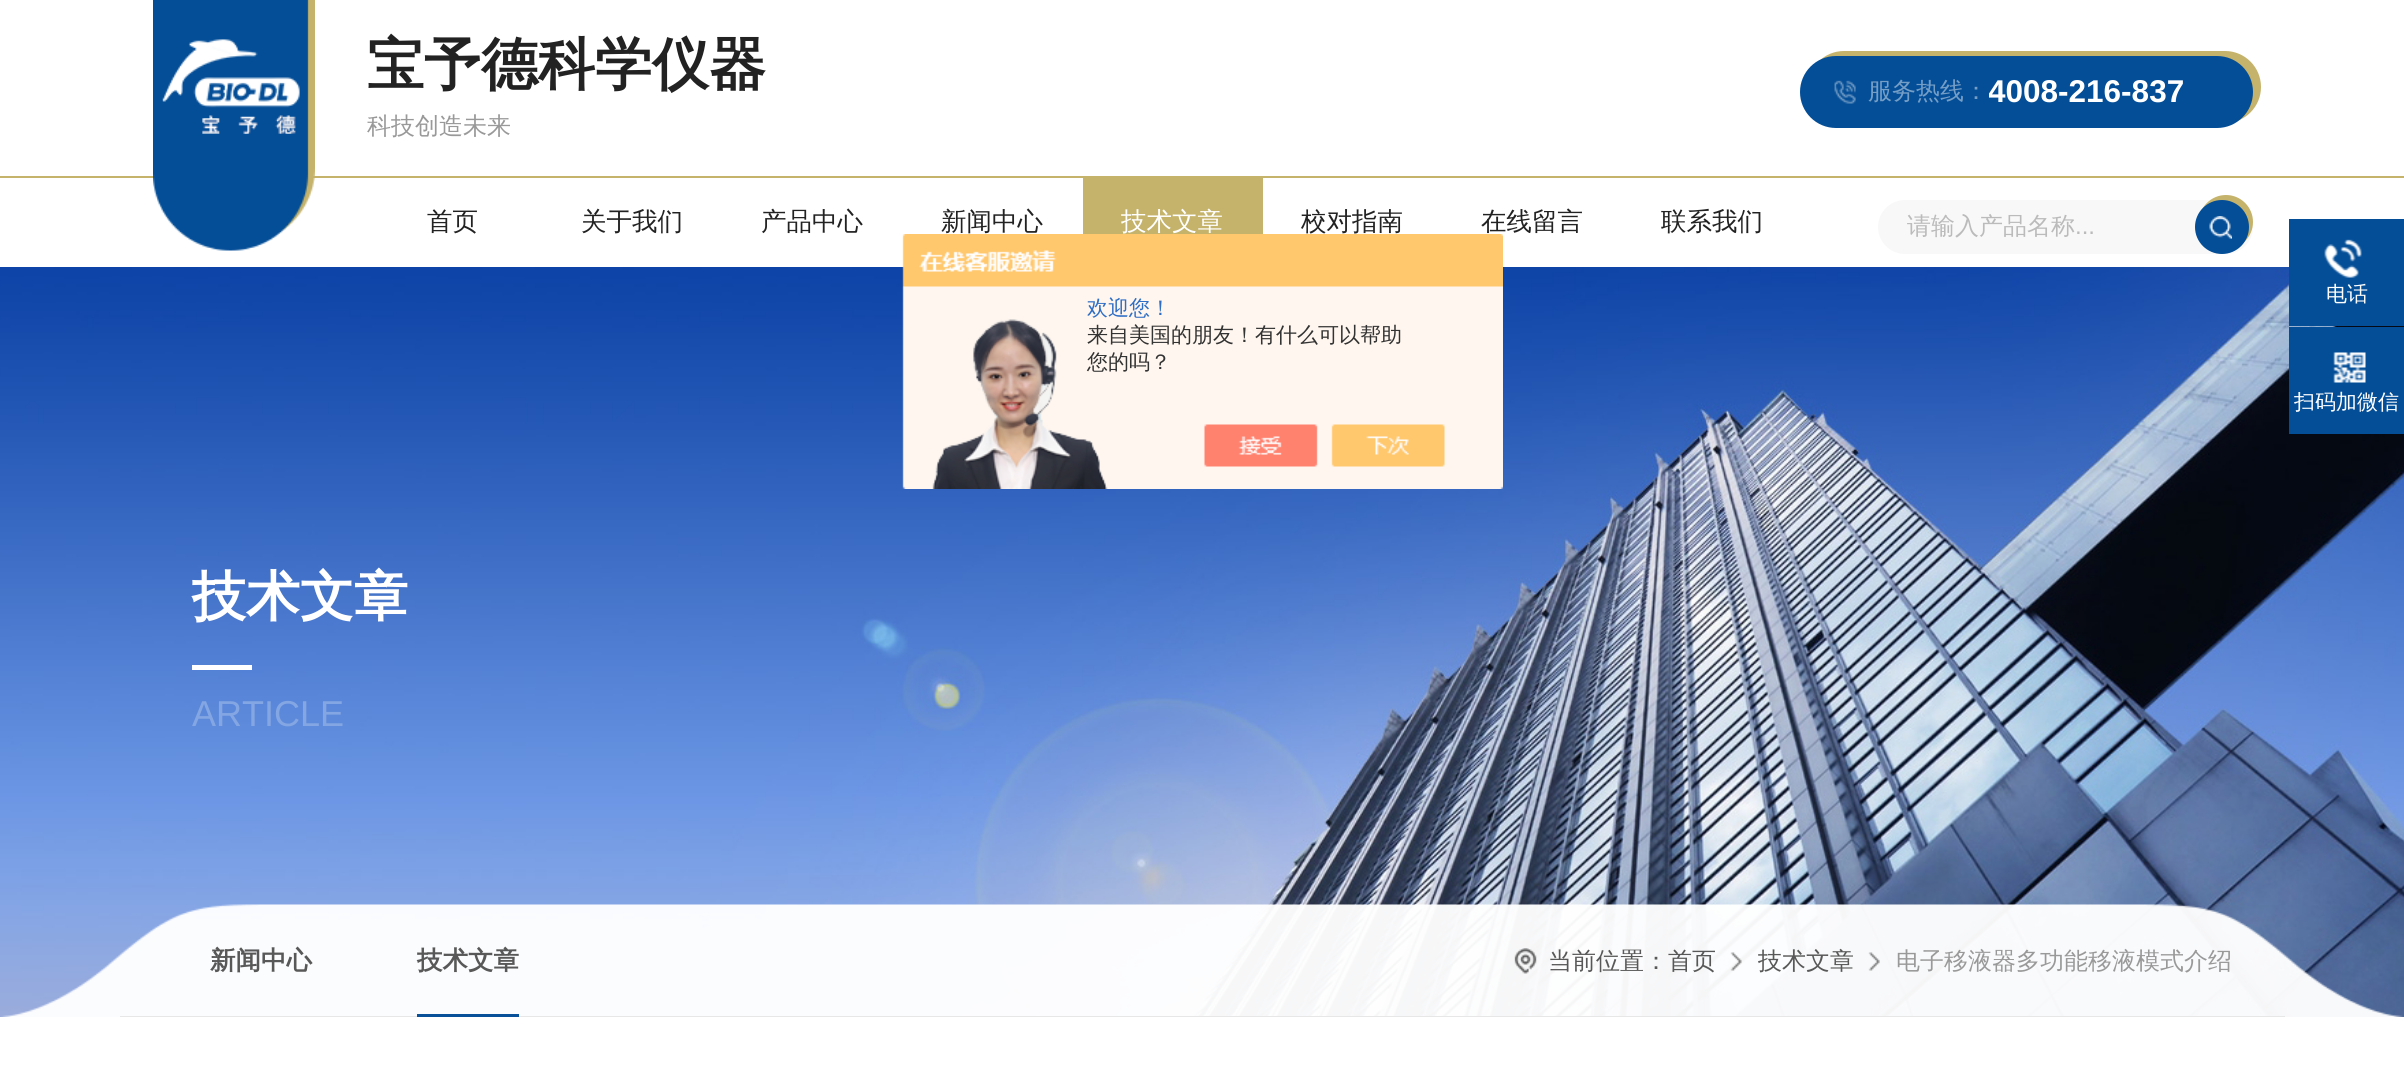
#include <cairo.h>
#include <math.h>
#include <stddef.h>


static void rgb(cairo_t *cr, int r, int g, int b)
{
	cairo_set_source_rgb(cr, r / 255.0, g / 255.0, b / 255.0);
}

static void face(cairo_t *cr, const char *family, double size, int italic, int bold)
{
	cairo_select_font_face(cr, family, italic ? CAIRO_FONT_SLANT_ITALIC : CAIRO_FONT_SLANT_NORMAL,
		bold ? CAIRO_FONT_WEIGHT_BOLD : CAIRO_FONT_WEIGHT_NORMAL);
	cairo_set_font_size(cr, size);
}

static void label(cairo_t *cr, double x, double y, const char *s)
{
	cairo_move_to(cr, x, y);
	cairo_show_text(cr, s);
}

static void rect(cairo_t *cr, double x, double y, double w, double h)
{
	cairo_rectangle(cr, x, y, w, h);
	cairo_fill(cr);
}

static void rrect(cairo_t *cr, double x, double y, double w, double h, double r)
{
	cairo_new_sub_path(cr);
	cairo_arc(cr, x + w - r, y + h - r, r, 0, M_PI / 2);
	cairo_arc(cr, x + r, y + h - r, r, M_PI / 2, M_PI);
	cairo_arc(cr, x + r, y + r, r, M_PI, 1.5 * M_PI);
	cairo_arc(cr, x + w - r, y + r, r, 1.5 * M_PI, 2 * M_PI);
	cairo_close_path(cr);
}

static void image(cairo_t *cr, const char *path, double x, double y, double w, double h)
{
	cairo_surface_t *image = cairo_image_surface_create_from_png(path);
	cairo_save(cr);
	cairo_set_source_surface(cr, image, x, y);
	cairo_rectangle(cr, x, y, w, h);
	cairo_fill(cr);
	cairo_restore(cr);
	cairo_surface_destroy(image);
}

static void draw(cairo_t *cr) {
	rgb(cr, 255, 255, 255);
	cairo_paint(cr);
	rgb(cr, 197, 179, 107);
	rect(cr, 0, 176, 2404, 2);
	image(cr, "image0.png", 153, 0, 162, 251);
	face(cr, "WenQuanYi Zen Hei", 57, 0, 1);
	rgb(cr, 34, 34, 34);
	label(cr, 367, 84, "宝予德科学仪器");
	face(cr, "WenQuanYi Zen Hei Medium", 24, 0, 0);
	rgb(cr, 153, 153, 153);
	label(cr, 367, 134, "科技创造未来");
	rgb(cr, 197, 179, 107);
	rrect(cr, 1808, 51, 453, 72, 36);
	cairo_fill(cr);
	rgb(cr, 4, 78, 151);
	rrect(cr, 1800, 56, 453, 72, 36);
	cairo_fill(cr);
	image(cr, "image1.png", 1834, 80, 22, 24);
	rgb(cr, 117, 158, 198);
	label(cr, 1868, 99, "服务热线：");
	cairo_save(cr);
	cairo_rectangle(cr, 1989, 56, 195, 72);
	cairo_clip(cr);
	face(cr, "Liberation Sans", 31.5, 0, 1);
	rgb(cr, 255, 255, 255);
	label(cr, 1988, 102, "4008-216-837");
	cairo_restore(cr);
	face(cr, "WenQuanYi Zen Hei Medium", 25.5, 0, 0);
	rgb(cr, 34, 34, 34);
	label(cr, 427, 230, "首页");
	label(cr, 581, 230, "关于我们");
	label(cr, 761, 230, "产品中心");
	label(cr, 941, 230, "新闻中心");
	rgb(cr, 197, 179, 107);
	rect(cr, 1083, 178, 180, 56);
	rgb(cr, 255, 255, 255);
	label(cr, 1121, 230, "技术文章");
	rgb(cr, 34, 34, 34);
	label(cr, 1301, 230, "校对指南");
	label(cr, 1481, 230, "在线留言");
	label(cr, 1661, 230, "联系我们");
	rgb(cr, 248, 248, 248);
	rrect(cr, 1878, 200, 375, 54, 27);
	cairo_fill(cr);
	face(cr, "WenQuanYi Zen Hei Medium", 24, 0, 0);
	rgb(cr, 187, 187, 187);
	label(cr, 1907, 234, "请输入产品名称");
	face(cr, "Liberation Sans", 24, 0, 0);
	label(cr, 2075, 234, "...");
	rgb(cr, 197, 179, 107);
	cairo_new_path(cr);
	cairo_arc(cr, 2226, 222, 27, 0, 2 * M_PI);
	cairo_fill(cr);
	rgb(cr, 4, 78, 151);
	cairo_arc(cr, 2222, 227, 27, 0, 2 * M_PI);
	cairo_fill(cr);
	image(cr, "image2.png", 2209, 216, 23, 23);
	image(cr, "image6.png", 0, 267, 2404, 750);
	image(cr, "image3.png", 902, 234, 601, 255);
	face(cr, "WenQuanYi Zen Hei Medium", 21, 0, 0);
	rgb(cr, 46, 110, 198);
	label(cr, 1087, 315, "欢迎您！");
	rgb(cr, 51, 51, 51);
	label(cr, 1087, 342, "来自美国的朋友！有什么可以帮助");
	label(cr, 1087, 369, "您的吗？");
	rgb(cr, 4, 78, 151);
	rect(cr, 2289, 219, 115, 107);
	image(cr, "image4.png", 2324, 239, 38, 39);
	rgb(cr, 255, 255, 255);
	label(cr, 2326, 301, "电话");
	rgb(cr, 4, 78, 151);
	rect(cr, 2289, 327, 115, 107);
	image(cr, "image5.png", 2333, 352, 33, 31);
	rgb(cr, 255, 255, 255);
	label(cr, 2294, 409, "扫码加微信");
	face(cr, "WenQuanYi Zen Hei", 54, 0, 1);
	label(cr, 192, 615, "技术文章");
	rect(cr, 192, 665, 60, 5);
	face(cr, "Liberation Sans", 36, 0, 0);
	rgb(cr, 132, 166, 227);
	label(cr, 192, 726, "ARTICLE");
	image(cr, "image7.png", 1, 904, 2403, 113);
	cairo_set_source_rgba(cr, 0.902, 0.902, 0.902, 0.98);
	rect(cr, 120, 1016, 2165, 1);
	face(cr, "WenQuanYi Zen Hei", 25.5, 0, 1);
	rgb(cr, 88, 88, 88);
	label(cr, 210, 969, "新闻中心");
	label(cr, 417, 969, "技术文章");
	rgb(cr, 9, 81, 153);
	rect(cr, 417, 1014, 102, 3);
	image(cr, "image8.png", 1514, 948, 23, 26);
	face(cr, "WenQuanYi Zen Hei Medium", 24, 0, 0);
	rgb(cr, 88, 88, 88);
	label(cr, 1548, 969, "当前位置：首页");
	image(cr, "image9.png", 1730, 952, 12, 19);
	label(cr, 1758, 969, "技术文章");
	image(cr, "image10.png", 1868, 952, 12, 19);
	rgb(cr, 153, 153, 153);
	label(cr, 1896, 969, "电子移液器多功能移液模式介绍");
}

int main(void) {
	cairo_surface_t *surface = cairo_image_surface_create(CAIRO_FORMAT_RGB24, 2404, 1084);
	cairo_t *cr = cairo_create(surface);
	cairo_font_options_t *options = cairo_font_options_create();
	cairo_font_options_set_hint_metrics(options, CAIRO_HINT_METRICS_OFF);
	cairo_font_options_set_hint_style(options, CAIRO_HINT_STYLE_NONE);
	cairo_set_font_options(cr, options);
	cairo_set_miter_limit(cr, 4);
	draw(cr);
	cairo_surface_write_to_png(surface, "render.png");
	cairo_font_options_destroy(options);
	cairo_destroy(cr);
	cairo_surface_destroy(surface);
	return 0;
}
